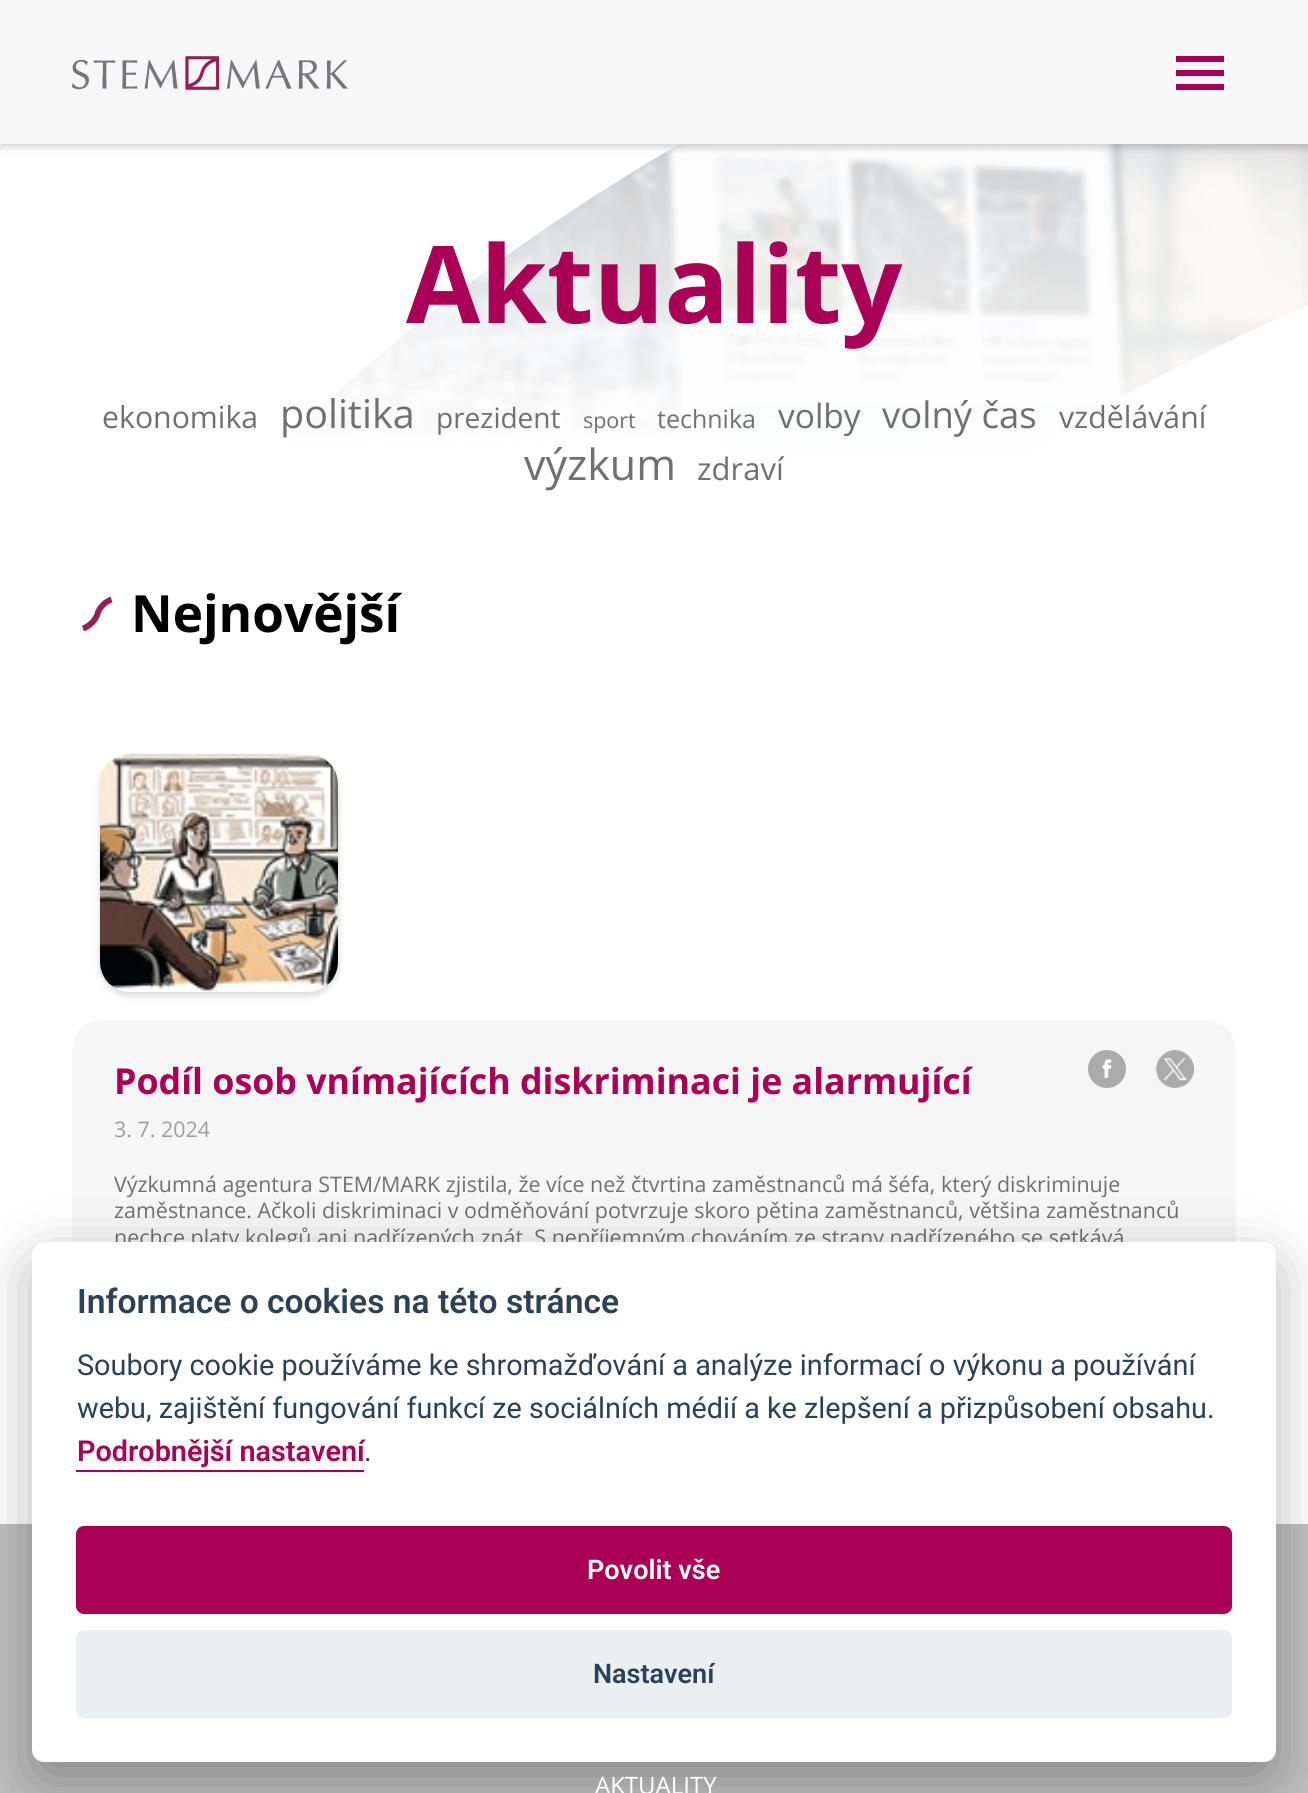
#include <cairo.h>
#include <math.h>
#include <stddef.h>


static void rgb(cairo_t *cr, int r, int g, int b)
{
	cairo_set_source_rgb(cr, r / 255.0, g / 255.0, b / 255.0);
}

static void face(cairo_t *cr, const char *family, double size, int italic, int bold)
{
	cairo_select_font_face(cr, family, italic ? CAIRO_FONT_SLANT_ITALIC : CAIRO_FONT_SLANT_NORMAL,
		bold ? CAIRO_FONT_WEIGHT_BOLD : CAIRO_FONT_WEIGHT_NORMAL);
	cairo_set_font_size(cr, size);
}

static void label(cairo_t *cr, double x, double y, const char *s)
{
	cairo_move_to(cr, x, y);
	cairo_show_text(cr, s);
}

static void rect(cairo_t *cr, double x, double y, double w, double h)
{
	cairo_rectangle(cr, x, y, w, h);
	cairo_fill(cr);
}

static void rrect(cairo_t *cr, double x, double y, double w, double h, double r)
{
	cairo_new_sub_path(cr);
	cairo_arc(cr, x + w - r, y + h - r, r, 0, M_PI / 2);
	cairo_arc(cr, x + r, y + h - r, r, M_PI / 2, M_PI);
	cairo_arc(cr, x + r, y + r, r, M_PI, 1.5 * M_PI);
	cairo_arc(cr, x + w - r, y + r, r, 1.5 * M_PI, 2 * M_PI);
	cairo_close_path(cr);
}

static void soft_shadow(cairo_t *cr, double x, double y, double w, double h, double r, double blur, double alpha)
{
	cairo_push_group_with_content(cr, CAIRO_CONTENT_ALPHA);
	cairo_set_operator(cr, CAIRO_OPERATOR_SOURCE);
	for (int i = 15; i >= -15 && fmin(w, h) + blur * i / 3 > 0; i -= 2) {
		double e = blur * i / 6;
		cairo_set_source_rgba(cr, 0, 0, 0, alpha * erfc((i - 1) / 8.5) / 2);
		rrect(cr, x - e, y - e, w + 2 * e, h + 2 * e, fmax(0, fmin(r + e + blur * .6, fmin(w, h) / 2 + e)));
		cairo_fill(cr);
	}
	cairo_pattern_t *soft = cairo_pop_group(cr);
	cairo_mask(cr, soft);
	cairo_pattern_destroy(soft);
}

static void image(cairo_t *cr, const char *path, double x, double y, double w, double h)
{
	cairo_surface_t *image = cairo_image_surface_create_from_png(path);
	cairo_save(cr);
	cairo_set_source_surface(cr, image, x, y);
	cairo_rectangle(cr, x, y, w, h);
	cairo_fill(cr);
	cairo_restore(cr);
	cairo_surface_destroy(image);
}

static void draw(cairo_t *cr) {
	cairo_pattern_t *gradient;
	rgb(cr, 255, 255, 255);
	cairo_paint(cr);
	image(cr, "image1.png", 290, 144, 1018, 310);
	rgb(cr, 0, 0, 0);
	soft_shadow(cr, 0, 4, 1308, 144, 0, 3.5, 0.16);
	rgb(cr, 247, 247, 247);
	rect(cr, 0, 0, 1308, 144);
	image(cr, "image0.png", 72, 56, 276, 34);
	rgb(cr, 169, 0, 86);
	rect(cr, 1176, 70, 48, 6);
	rect(cr, 1176, 56, 48, 6);
	rect(cr, 1176, 84, 48, 6);
	face(cr, "Open Sans", 107.5, 0, 1);
	label(cr, 406, 323, "Aktuality");
	face(cr, "Open Sans", 30.25, 0, 0);
	rgb(cr, 112, 112, 112);
	label(cr, 102, 428, "ekonomika");
	gradient = cairo_pattern_create_linear(654, 502, 654, 360);
	cairo_pattern_add_color_stop_rgba(gradient, 0, 1, 1, 1, 1);
	cairo_pattern_add_color_stop_rgba(gradient, 1, 1, 1, 1, 0);
	cairo_set_source(cr, gradient);
	cairo_pattern_destroy(gradient);
	rect(cr, 290, 381, 843, 73);
	face(cr, "Open Sans", 39.5, 0, 0);
	rgb(cr, 112, 112, 112);
	label(cr, 280, 428, "politika");
	face(cr, "Open Sans", 28, 0, 0);
	label(cr, 436, 428, "prezident");
	face(cr, "Open Sans", 21.45, 0, 0);
	label(cr, 583, 428, "sport");
	face(cr, "Open Sans", 25, 0, 0);
	label(cr, 657, 428, "technika");
	face(cr, "Open Sans", 33.5, 0, 0);
	label(cr, 778, 428, "volby");
	face(cr, "Open Sans", 36.5, 0, 0);
	label(cr, 882, 428, "volný čas");
	face(cr, "Open Sans", 30.25, 0, 0);
	label(cr, 1059, 428, "vzdělávání");
	face(cr, "Open Sans", 43, 0, 0);
	label(cr, 524, 480, "výzkum");
	face(cr, "Open Sans", 31, 0, 0);
	label(cr, 697, 480, "zdraví");
	cairo_new_path(cr);
	cairo_move_to(cr, 111.5, 599.5);
	cairo_curve_to(cr, 105.5, 601.5, 99, 607.5, 97.5, 614);
	cairo_curve_to(cr, 95.5, 620.5, 89, 626.5, 83, 628.5);
	rgb(cr, 149, 33, 84);
	cairo_set_line_width(cr, 6);
	cairo_stroke(cr);
	face(cr, "Open Sans", 51.25, 0, 1);
	rgb(cr, 0, 0, 0);
	label(cr, 131, 632, "Nejnovější");
	rgb(cr, 0, 0, 0);
	soft_shadow(cr, 100, 758, 238, 238, 30, 3.5, 0.16);
	image(cr, "image2.png", 100, 754, 238, 238);
	rgb(cr, 246, 246, 246);
	rrect(cr, 72, 1020, 1164, 376, 30);
	cairo_fill(cr);
	image(cr, "image3.png", 1088, 1050, 38, 38);
	image(cr, "image4.png", 1156, 1050, 38, 38);
	face(cr, "Open Sans", 35.75, 0, 1);
	rgb(cr, 169, 0, 86);
	label(cr, 114, 1094, "Podíl osob vnímajících diskriminaci je alarmující");
	face(cr, "Open Sans", 21.45, 0, 0);
	rgb(cr, 158, 158, 158);
	label(cr, 114, 1137, "3. 7. 2024");
	rgb(cr, 112, 112, 112);
	label(cr, 114, 1192, "Výzkumná agentura STEM/MARK zjistila, že více než čtvrtina zaměstnanců má šéfa, který diskriminuje");
	label(cr, 114, 1218, "zaměstnance. Ačkoli diskriminaci v odměňování potvrzuje skoro pětina zaměstnanců, většina zaměstnanců");
	label(cr, 114, 1245, "nechce platy kolegů ani nadřízených znát. S nepříjemným chováním ze strany nadřízeného se setkává");
	rgb(cr, 191, 191, 191);
	rect(cr, 0, 1524, 1308, 269);
	rgb(cr, 2, 2, 3);
	soft_shadow(cr, 32, 1262, 1244, 520, 12, 30, 0.28);
	rgb(cr, 255, 255, 255);
	rrect(cr, 32, 1242, 1244, 520, 12);
	cairo_fill(cr);
	face(cr, "Roboto SemiBold", 33.6, 0, 0);
	rgb(cr, 45, 65, 86);
	label(cr, 77, 1313, "Informace o cookies na této stránce");
	face(cr, "Roboto", 28.8, 0, 0);
	label(cr, 77, 1375, "Soubory cookie používáme ke shromažďování a analýze informací o výkonu a používání");
	label(cr, 77, 1418, "webu, zajištění fungování funkcí ze sociálních médií a ke zlepšení a přizpůsobení obsahu.");
	face(cr, "Roboto SemiBold", 28.8, 0, 0);
	rgb(cr, 169, 0, 86);
	label(cr, 77, 1461, "Podrobnější nastavení");
	rect(cr, 76, 1470, 288, 2);
	face(cr, "Roboto", 28.8, 0, 0);
	rgb(cr, 45, 65, 86);
	label(cr, 364, 1461, ".");
	rgb(cr, 169, 0, 86);
	rrect(cr, 76, 1526, 1156, 88, 8);
	cairo_fill(cr);
	face(cr, "Roboto SemiBold", 27, 0, 0);
	rgb(cr, 255, 255, 255);
	label(cr, 587, 1579, "Povolit vše");
	rgb(cr, 234, 239, 242);
	rrect(cr, 76, 1630, 1156, 88, 8);
	cairo_fill(cr);
	rgb(cr, 45, 65, 86);
	label(cr, 593, 1683, "Nastavení");
	face(cr, "Open Sans", 24, 0, 0);
	rgb(cr, 255, 255, 255);
	label(cr, 595, 1794, "AKTUALITY");
}

int main(void) {
	cairo_surface_t *surface = cairo_image_surface_create(CAIRO_FORMAT_RGB24, 1308, 1793);
	cairo_t *cr = cairo_create(surface);
	cairo_font_options_t *options = cairo_font_options_create();
	cairo_font_options_set_hint_metrics(options, CAIRO_HINT_METRICS_OFF);
	cairo_font_options_set_hint_style(options, CAIRO_HINT_STYLE_NONE);
	cairo_set_font_options(cr, options);
	cairo_set_miter_limit(cr, 4);
	draw(cr);
	cairo_surface_write_to_png(surface, "render.png");
	cairo_font_options_destroy(options);
	cairo_destroy(cr);
	cairo_surface_destroy(surface);
	return 0;
}
